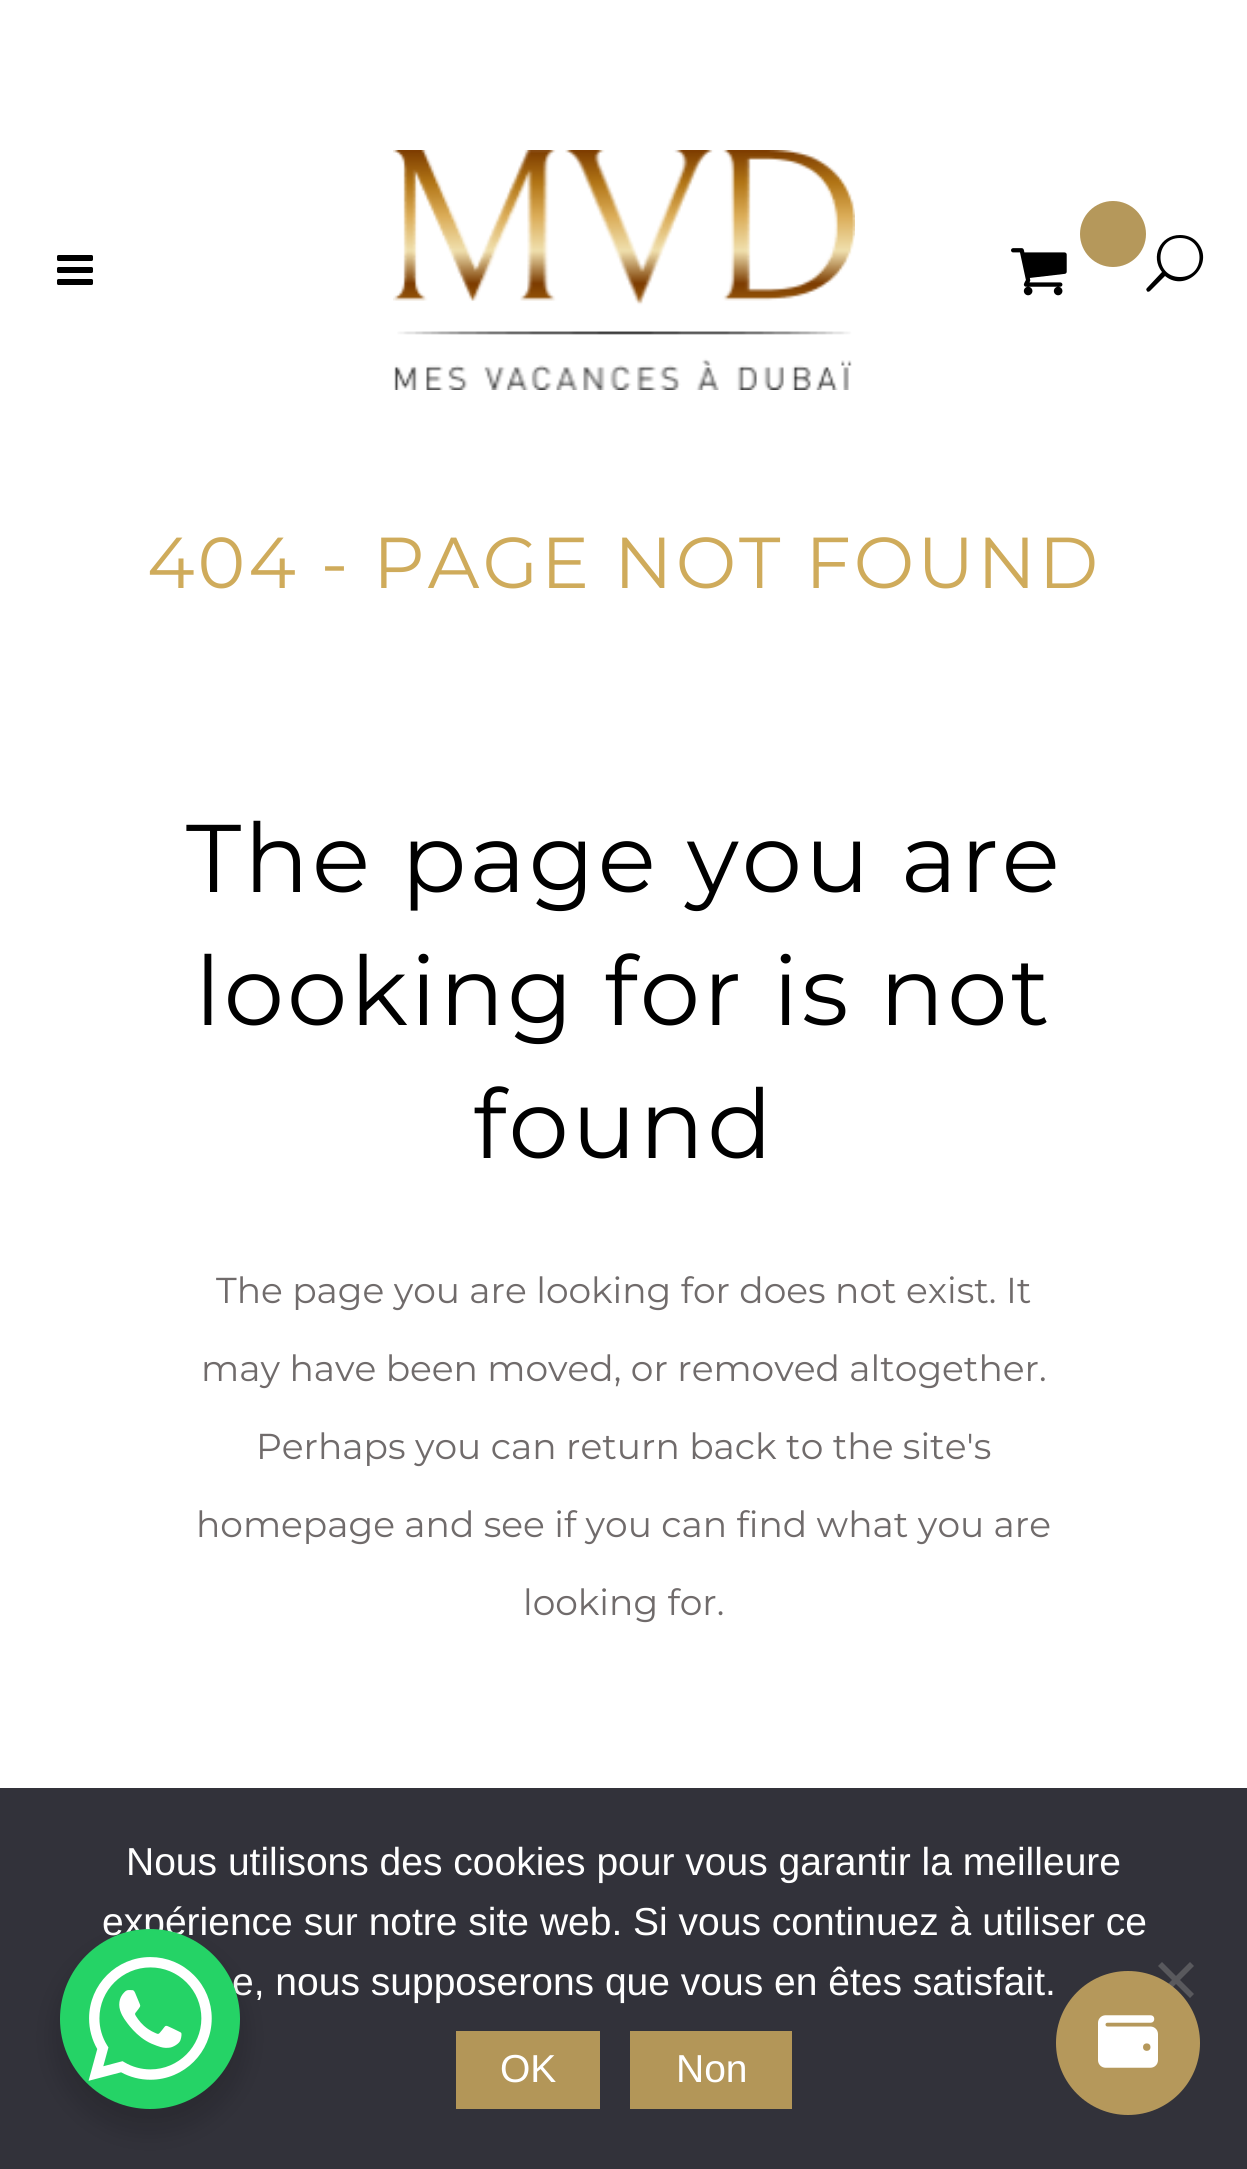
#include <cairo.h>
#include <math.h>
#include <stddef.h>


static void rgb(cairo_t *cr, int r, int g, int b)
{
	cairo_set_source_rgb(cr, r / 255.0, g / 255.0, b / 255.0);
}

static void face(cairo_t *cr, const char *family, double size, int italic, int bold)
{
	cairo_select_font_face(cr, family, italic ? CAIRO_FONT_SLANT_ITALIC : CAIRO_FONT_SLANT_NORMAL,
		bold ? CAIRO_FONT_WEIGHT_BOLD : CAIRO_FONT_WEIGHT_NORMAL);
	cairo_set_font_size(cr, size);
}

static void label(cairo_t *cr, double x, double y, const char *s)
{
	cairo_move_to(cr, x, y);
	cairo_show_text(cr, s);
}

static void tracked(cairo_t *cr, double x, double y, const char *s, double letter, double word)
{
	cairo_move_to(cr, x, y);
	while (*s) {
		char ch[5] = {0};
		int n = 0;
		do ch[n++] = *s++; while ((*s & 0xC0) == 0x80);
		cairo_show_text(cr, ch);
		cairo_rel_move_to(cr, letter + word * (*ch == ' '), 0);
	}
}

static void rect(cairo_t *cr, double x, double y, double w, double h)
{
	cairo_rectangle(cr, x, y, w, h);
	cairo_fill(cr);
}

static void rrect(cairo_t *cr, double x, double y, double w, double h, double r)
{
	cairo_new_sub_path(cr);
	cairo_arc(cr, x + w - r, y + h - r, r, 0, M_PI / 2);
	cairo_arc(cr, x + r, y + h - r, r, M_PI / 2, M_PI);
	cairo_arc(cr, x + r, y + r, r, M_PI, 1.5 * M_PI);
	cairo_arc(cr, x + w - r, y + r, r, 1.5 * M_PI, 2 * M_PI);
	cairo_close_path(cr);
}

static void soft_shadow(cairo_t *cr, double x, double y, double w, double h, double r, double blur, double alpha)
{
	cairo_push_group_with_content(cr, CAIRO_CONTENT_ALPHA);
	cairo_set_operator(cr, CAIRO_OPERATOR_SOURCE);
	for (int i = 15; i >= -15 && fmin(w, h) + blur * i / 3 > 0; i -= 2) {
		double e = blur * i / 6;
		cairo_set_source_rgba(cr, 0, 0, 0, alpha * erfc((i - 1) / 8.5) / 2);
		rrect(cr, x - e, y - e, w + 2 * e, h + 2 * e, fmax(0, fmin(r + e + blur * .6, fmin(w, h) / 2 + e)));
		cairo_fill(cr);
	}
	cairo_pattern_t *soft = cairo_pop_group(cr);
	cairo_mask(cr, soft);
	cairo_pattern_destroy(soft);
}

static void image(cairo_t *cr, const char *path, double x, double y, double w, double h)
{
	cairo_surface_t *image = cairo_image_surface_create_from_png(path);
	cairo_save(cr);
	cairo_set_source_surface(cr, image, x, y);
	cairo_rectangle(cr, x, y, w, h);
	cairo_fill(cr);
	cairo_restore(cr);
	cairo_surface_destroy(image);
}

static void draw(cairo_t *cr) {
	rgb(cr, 255, 255, 255);
	cairo_paint(cr);
	image(cr, "image0.png", 57, 255, 36, 30);
	image(cr, "image1.png", 393, 150, 462, 240);
	rgb(cr, 181, 152, 91);
	cairo_arc(cr, 1113, 234, 33, 0, 2 * M_PI);
	cairo_fill(cr);
	image(cr, "image2.png", 1011, 248, 56, 48);
	rgb(cr, 0, 0, 0);
	cairo_new_path(cr);
	cairo_move_to(cr, 1180, 235);
	cairo_curve_to(cr, 1186, 235, 1192, 237, 1196, 241);
	cairo_curve_to(cr, 1217, 262, 1187, 294, 1165, 276);
	cairo_line_to(cr, 1150, 291);
	cairo_curve_to(cr, 1149, 292, 1147, 292, 1147, 291);
	cairo_curve_to(cr, 1146, 290, 1146, 289, 1147, 288);
	cairo_line_to(cr, 1162, 272);
	cairo_curve_to(cr, 1150, 257, 1160, 235, 1180, 235);
	cairo_close_path(cr);
	cairo_move_to(cr, 1180, 277);
	cairo_curve_to(cr, 1206, 277, 1206, 238, 1180, 238);
	cairo_curve_to(cr, 1154, 238, 1154, 277, 1180, 277);
	cairo_close_path(cr);
	cairo_fill(cr);
	face(cr, "Montserrat", 72, 0, 0);
	rgb(cr, 207, 171, 91);
	tracked(cr, 147, 588, "404 - PAGE NOT FOUND", 3, 0);
	face(cr, "Montserrat", 96, 0, 0);
	rgb(cr, 0, 0, 0);
	tracked(cr, 186, 892, "The page you are", 3, 0);
	tracked(cr, 195, 1025, "looking for is not", 3, 0);
	tracked(cr, 473, 1158, "found", 3, 0);
	face(cr, "Montserrat", 36, 0, 0);
	rgb(cr, 112, 107, 107);
	label(cr, 216, 1303, "The page you are looking for does not exist. It");
	label(cr, 201, 1381, "may have been moved, or removed altogether.");
	label(cr, 256, 1459, "Perhaps you can return back to the site's");
	label(cr, 196, 1537, "homepage and see if you can find what you are");
	label(cr, 523, 1615, "looking for.");
	rgb(cr, 50, 50, 58);
	rect(cr, 0, 1788, 1247, 381);
	face(cr, "Liberation Sans", 39, 0, 0);
	rgb(cr, 255, 255, 255);
	label(cr, 126, 1875, "Nous utilisons des cookies pour vous garantir la meilleure");
	label(cr, 102, 1935, "expérience sur notre site web. Si vous continuez à utiliser ce");
	label(cr, 232, 1995, "e, nous supposerons que vous en êtes satisfait.");
	rgb(cr, 89, 89, 93);
	cairo_new_path(cr);
	cairo_move_to(cr, 1190, 1962);
	cairo_line_to(cr, 1194, 1966);
	cairo_line_to(cr, 1162, 1998);
	cairo_line_to(cr, 1158, 1994);
	cairo_close_path(cr);
	cairo_fill(cr);
	cairo_new_path(cr);
	cairo_move_to(cr, 1158, 1966);
	cairo_line_to(cr, 1162, 1962);
	cairo_line_to(cr, 1194, 1994);
	cairo_line_to(cr, 1190, 1998);
	cairo_close_path(cr);
	cairo_fill(cr);
	rgb(cr, 179, 150, 88);
	rect(cr, 456, 2031, 144, 78);
	rgb(cr, 255, 255, 255);
	label(cr, 500, 2082, "OK");
	rgb(cr, 179, 150, 88);
	rect(cr, 630, 2031, 162, 78);
	rgb(cr, 255, 255, 255);
	label(cr, 676, 2082, "Non");
	rgb(cr, 0, 0, 0);
	soft_shadow(cr, 54, 1941, 192, 192, 96, 12, 0.15);
	rgb(cr, 37, 211, 102);
	cairo_arc(cr, 150, 2019, 90, 0, 2 * M_PI);
	cairo_fill(cr);
	image(cr, "image3.png", 88, 1957, 124, 124);
	rgb(cr, 181, 152, 91);
	cairo_arc(cr, 1128, 2043, 72, 0, 2 * M_PI);
	cairo_fill(cr);
	image(cr, "image4.png", 1098, 2015, 60, 53);
}

int main(void) {
	cairo_surface_t *surface = cairo_image_surface_create(CAIRO_FORMAT_RGB24, 1247, 2169);
	cairo_t *cr = cairo_create(surface);
	cairo_font_options_t *options = cairo_font_options_create();
	cairo_font_options_set_hint_metrics(options, CAIRO_HINT_METRICS_OFF);
	cairo_font_options_set_hint_style(options, CAIRO_HINT_STYLE_NONE);
	cairo_set_font_options(cr, options);
	cairo_set_miter_limit(cr, 4);
	draw(cr);
	cairo_surface_write_to_png(surface, "render.png");
	cairo_font_options_destroy(options);
	cairo_destroy(cr);
	cairo_surface_destroy(surface);
	return 0;
}
